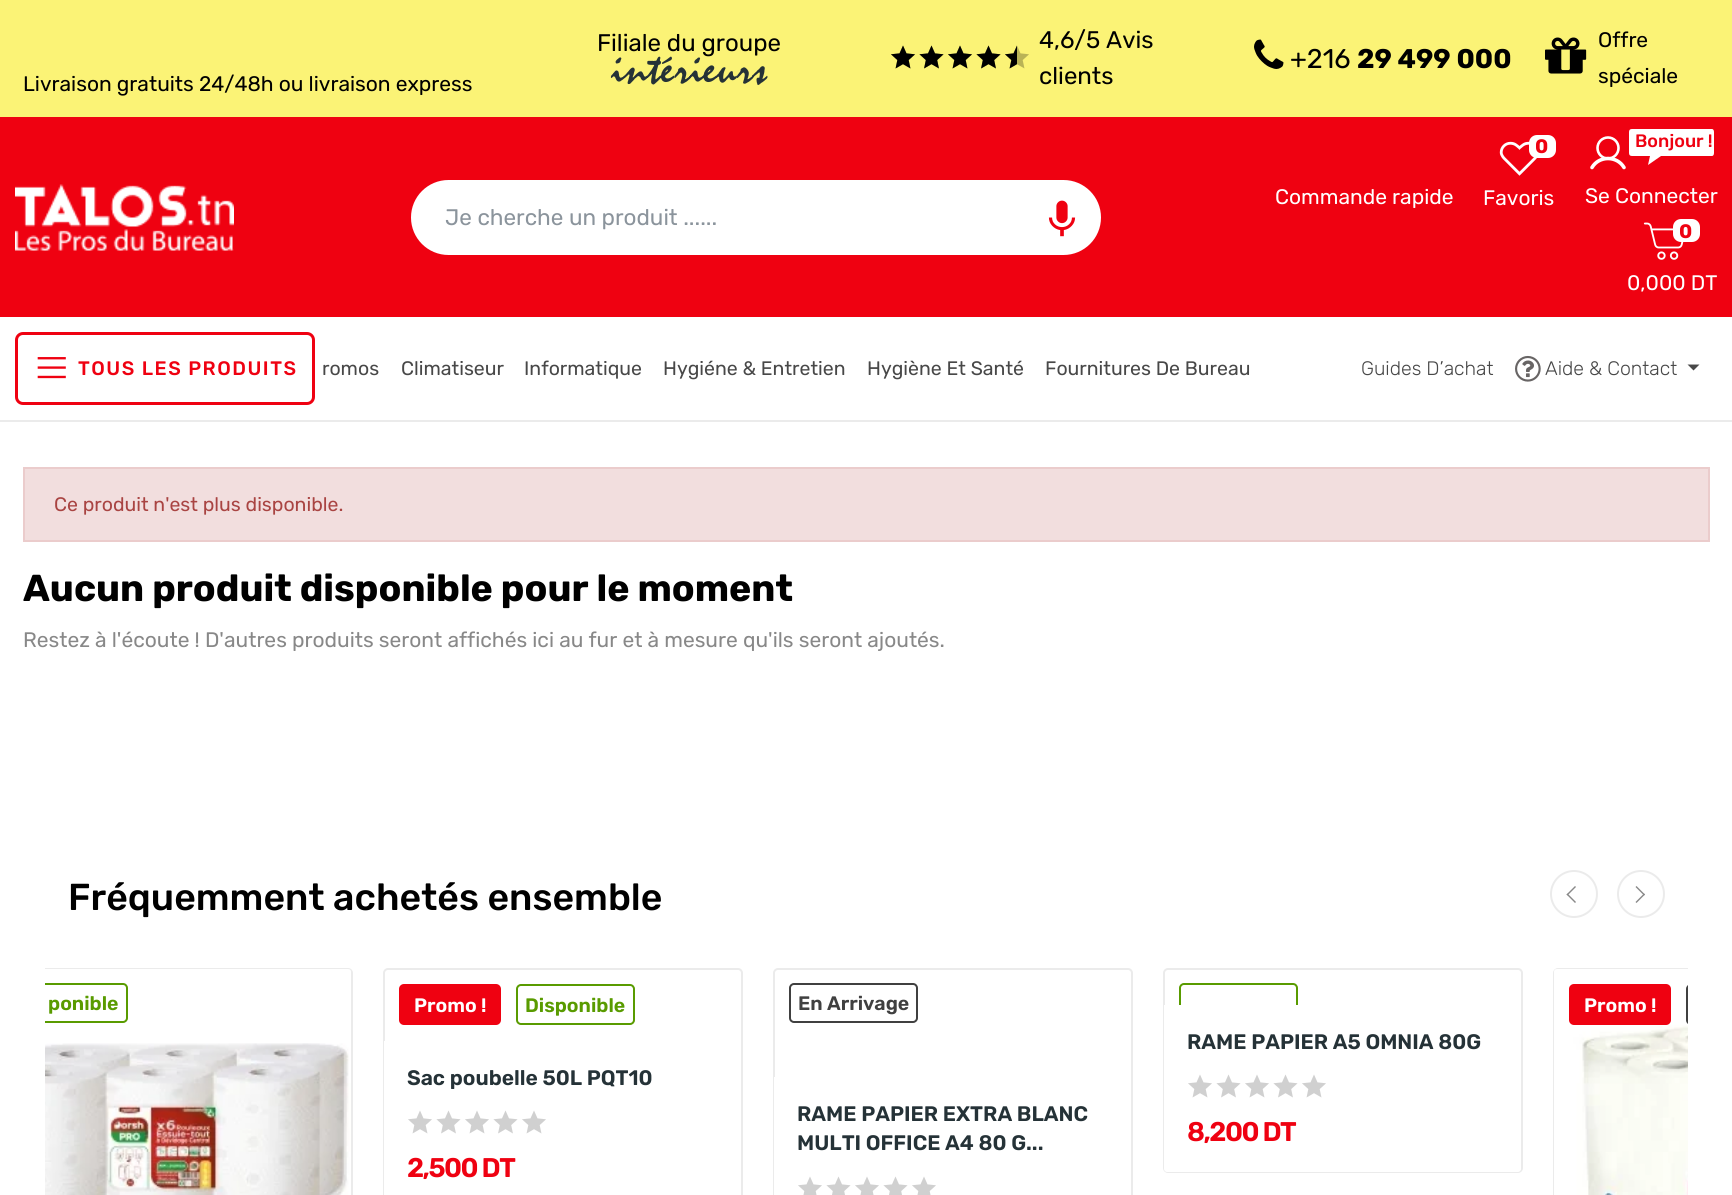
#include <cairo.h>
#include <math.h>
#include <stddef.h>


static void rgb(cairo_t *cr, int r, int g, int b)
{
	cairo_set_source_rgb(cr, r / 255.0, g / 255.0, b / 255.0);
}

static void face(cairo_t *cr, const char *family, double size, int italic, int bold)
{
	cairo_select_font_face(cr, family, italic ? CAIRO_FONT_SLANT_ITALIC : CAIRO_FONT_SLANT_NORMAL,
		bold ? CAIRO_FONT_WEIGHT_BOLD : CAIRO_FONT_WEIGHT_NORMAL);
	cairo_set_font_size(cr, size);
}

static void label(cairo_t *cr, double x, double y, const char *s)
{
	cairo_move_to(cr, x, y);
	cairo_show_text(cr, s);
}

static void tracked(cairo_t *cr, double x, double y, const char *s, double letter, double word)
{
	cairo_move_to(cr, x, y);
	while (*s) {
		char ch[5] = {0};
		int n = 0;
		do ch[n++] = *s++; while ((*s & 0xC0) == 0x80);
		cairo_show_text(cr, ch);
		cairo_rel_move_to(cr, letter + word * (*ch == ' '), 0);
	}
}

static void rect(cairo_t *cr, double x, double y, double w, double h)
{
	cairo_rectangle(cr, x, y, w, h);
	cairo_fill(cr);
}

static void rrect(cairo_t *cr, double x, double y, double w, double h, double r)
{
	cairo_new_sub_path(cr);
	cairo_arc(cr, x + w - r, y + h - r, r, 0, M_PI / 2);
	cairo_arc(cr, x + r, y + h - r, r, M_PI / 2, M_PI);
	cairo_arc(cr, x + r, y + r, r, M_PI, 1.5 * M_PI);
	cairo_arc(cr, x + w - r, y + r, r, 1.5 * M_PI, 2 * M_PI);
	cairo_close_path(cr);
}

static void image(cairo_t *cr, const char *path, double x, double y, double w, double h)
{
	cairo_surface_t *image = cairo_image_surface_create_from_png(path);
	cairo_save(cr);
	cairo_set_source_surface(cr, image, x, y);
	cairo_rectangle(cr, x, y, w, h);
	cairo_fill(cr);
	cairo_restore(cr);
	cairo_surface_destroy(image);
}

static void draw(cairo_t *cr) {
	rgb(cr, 255, 255, 255);
	cairo_paint(cr);
	rgb(cr, 235, 235, 235);
	rect(cr, 0, 420, 1732, 2);
	rgb(cr, 251, 243, 118);
	rect(cr, 0, 0, 1732, 117);
	face(cr, "Rubik", 24, 0, 0);
	rgb(cr, 0, 0, 0);
	label(cr, 597, 51, "Filiale du groupe");
	face(cr, "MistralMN", 42, 0, 0);
	rgb(cr, 37, 50, 55);
	label(cr, 611, 81, "intérieurs");
	image(cr, "image0.png", 891, 45, 138, 24);
	image(cr, "image1.png", 891, 45, 126, 24);
	face(cr, "Rubik", 24, 0, 0);
	rgb(cr, 0, 0, 0);
	label(cr, 1039, 48, "4,6/5 Avis");
	label(cr, 1039, 84, "clients");
	image(cr, "image2.png", 1254, 39, 30, 30);
	face(cr, "Rubik", 27, 0, 0);
	label(cr, 1290, 68, "+216");
	face(cr, "Rubik", 27, 0, 1);
	label(cr, 1357, 68, "29 499 000");
	image(cr, "image3.png", 1545, 37, 42, 37);
	face(cr, "Rubik", 21, 0, 0);
	label(cr, 1598, 47, "Offre");
	label(cr, 1598, 83, "spéciale");
	label(cr, 23, 91, "Livraison gratuits 24/48h ou livraison express");
	rgb(cr, 239, 1, 17);
	rect(cr, 0, 117, 1732, 200);
	image(cr, "image4.png", 15, 184, 219, 67);
	rgb(cr, 255, 255, 255);
	rrect(cr, 413.5, 182.5, 685, 70, 35);
	cairo_fill_preserve(cr);
	cairo_set_line_width(cr, 5);
	cairo_stroke(cr);
	face(cr, "Rubik", 22.5, 0, 0);
	rgb(cr, 139, 148, 156);
	label(cr, 445, 225, "Je cherche un produit ......");
	image(cr, "image5.png", 1048, 200, 28, 37);
	face(cr, "Rubik", 21, 0, 0);
	rgb(cr, 255, 255, 255);
	label(cr, 1275, 204, "Commande rapide");
	image(cr, "image6.png", 1499, 141, 38, 35);
	rrect(cr, 1529, 135, 27, 23, 8);
	cairo_fill(cr);
	face(cr, "Rubik", 19.5, 0, 1);
	rgb(cr, 239, 1, 17);
	label(cr, 1535, 153, "0");
	face(cr, "Rubik", 21, 0, 0);
	rgb(cr, 255, 255, 255);
	label(cr, 1483, 205, "Favoris");
	cairo_new_path(cr);
	cairo_arc(cr, 1608, 148, 10.5, 0, 2 * M_PI);
	cairo_set_line_width(cr, 2.6);
	cairo_stroke(cr);
	cairo_new_path(cr);
	cairo_move_to(cr, 1592, 167.5);
	cairo_curve_to(cr, 1599, 155.5, 1617, 155.5, 1624, 167.5);
	cairo_set_line_width(cr, 3.6);
	cairo_set_line_cap(cr, CAIRO_LINE_CAP_ROUND);
	cairo_set_line_join(cr, CAIRO_LINE_JOIN_ROUND);
	cairo_stroke(cr);
	cairo_set_fill_rule(cr, CAIRO_FILL_RULE_EVEN_ODD);
	cairo_new_path(cr);
	cairo_move_to(cr, 1632, 129);
	cairo_curve_to(cr, 1630, 129, 1629, 130, 1629, 132);
	cairo_line_to(cr, 1629, 153);
	cairo_curve_to(cr, 1629, 155, 1630, 156, 1632, 156);
	cairo_line_to(cr, 1650, 156);
	cairo_line_to(cr, 1648, 165);
	cairo_line_to(cr, 1661, 156);
	cairo_line_to(cr, 1712, 156);
	cairo_curve_to(cr, 1713, 156, 1714, 155, 1714, 153);
	cairo_line_to(cr, 1714, 132);
	cairo_curve_to(cr, 1714, 130, 1713, 129, 1712, 129);
	cairo_close_path(cr);
	cairo_fill(cr);
	face(cr, "Rubik Medium", 18, 0, 0);
	rgb(cr, 239, 1, 17);
	label(cr, 1635, 147, "Bonjour !");
	face(cr, "Rubik", 21, 0, 0);
	rgb(cr, 255, 255, 255);
	label(cr, 1585, 203, "Se Connecter");
	image(cr, "image7.png", 1643, 222, 41, 38);
	rrect(cr, 1673, 219, 27, 23, 8);
	cairo_fill(cr);
	face(cr, "Rubik", 19.5, 0, 1);
	rgb(cr, 239, 1, 17);
	label(cr, 1679, 238, "0");
	face(cr, "Rubik", 21, 0, 0);
	rgb(cr, 255, 255, 255);
	label(cr, 1627, 290, "0,000 DT");
	rrect(cr, 16.5, 333.5, 297, 70, 6.5);
	rgb(cr, 239, 1, 17);
	cairo_set_line_width(cr, 3);
	cairo_set_line_cap(cr, CAIRO_LINE_CAP_BUTT);
	cairo_set_line_join(cr, CAIRO_LINE_JOIN_MITER);
	cairo_stroke(cr);
	image(cr, "image8.png", 37, 357, 29, 22);
	face(cr, "Rubik Medium", 19.5, 0, 0);
	tracked(cr, 78, 375, "TOUS LES PRODUITS", 1.5, 0);
	face(cr, "Rubik", 19.5, 0, 0);
	rgb(cr, 72, 72, 72);
	label(cr, 322, 375, "romos");
	label(cr, 401, 375, "Climatiseur");
	label(cr, 524, 375, "Informatique");
	label(cr, 663, 375, "Hygiéne & Entretien");
	label(cr, 867, 375, "Hygiène Et Santé");
	label(cr, 1045, 375, "Fournitures De Bureau");
	face(cr, "Rubik Light", 19.5, 0, 0);
	label(cr, 1361, 375, "Guides D’achat");
	image(cr, "image9.png", 1515, 355, 26, 27);
	label(cr, 1545, 375, "Aide & Contact");
	cairo_set_fill_rule(cr, CAIRO_FILL_RULE_WINDING);
	cairo_new_path(cr);
	cairo_move_to(cr, 1687.5, 364.5);
	cairo_line_to(cr, 1699.5, 364.5);
	cairo_line_to(cr, 1693.5, 370.5);
	cairo_close_path(cr);
	cairo_fill(cr);
	rgb(cr, 242, 222, 222);
	cairo_rectangle(cr, 24, 468, 1685, 73);
	cairo_fill_preserve(cr);
	rgb(cr, 235, 204, 204);
	cairo_set_line_width(cr, 2);
	cairo_stroke(cr);
	face(cr, "Rubik", 19.5, 0, 0);
	rgb(cr, 169, 68, 66);
	label(cr, 54, 511, "Ce produit n'est plus disponible.");
	face(cr, "Rubik", 37.5, 0, 1);
	rgb(cr, 0, 0, 0);
	label(cr, 23, 601, "Aucun produit disponible pour le moment");
	face(cr, "Rubik", 21, 0, 0);
	rgb(cr, 136, 136, 136);
	label(cr, 23, 647, "Restez à l'écoute ! D'autres produits seront affichés ici au fur et à mesure qu'ils seront ajoutés.");
	face(cr, "Rubik Medium", 37.5, 0, 0);
	rgb(cr, 0, 0, 0);
	label(cr, 68, 910, "Fréquemment achetés ensemble");
	cairo_new_path(cr);
	cairo_arc(cr, 1574, 894, 23, 0, 2 * M_PI);
	rgb(cr, 235, 235, 235);
	cairo_stroke(cr);
	rgb(cr, 136, 136, 136);
	cairo_new_path(cr);
	cairo_move_to(cr, 1575, 903);
	cairo_line_to(cr, 1566.5, 894.5);
	cairo_line_to(cr, 1567.5, 893.5);
	cairo_line_to(cr, 1576, 902);
	cairo_close_path(cr);
	cairo_fill(cr);
	cairo_new_path(cr);
	cairo_move_to(cr, 1567.5, 895.5);
	cairo_line_to(cr, 1566.5, 894.5);
	cairo_line_to(cr, 1575, 886);
	cairo_line_to(cr, 1576, 887);
	cairo_close_path(cr);
	cairo_fill(cr);
	cairo_arc(cr, 1641, 894, 23, 0, 2 * M_PI);
	rgb(cr, 235, 235, 235);
	cairo_stroke(cr);
	rgb(cr, 136, 136, 136);
	cairo_new_path(cr);
	cairo_move_to(cr, 1636.5, 886);
	cairo_line_to(cr, 1645, 894.5);
	cairo_line_to(cr, 1644, 895.5);
	cairo_line_to(cr, 1635.5, 887);
	cairo_close_path(cr);
	cairo_fill(cr);
	cairo_new_path(cr);
	cairo_move_to(cr, 1644, 893.5);
	cairo_line_to(cr, 1645, 894.5);
	cairo_line_to(cr, 1636.5, 903);
	cairo_line_to(cr, 1635.5, 902);
	cairo_close_path(cr);
	cairo_fill(cr);
	cairo_save(cr);
	cairo_rectangle(cr, 45, 968, 1643, 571);
	cairo_clip(cr);
	rrect(cr, -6, 969, 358, 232, 4);
	rgb(cr, 235, 235, 235);
	cairo_stroke(cr);
	cairo_restore(cr);
	image(cr, "image10.png", 45, 969, 306, 226);
	cairo_save(cr);
	cairo_rectangle(cr, 45, 969, 306, 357);
	cairo_clip(cr);
	rrect(cr, 10, 984, 117, 38, 4);
	rgb(cr, 89, 155, 0);
	cairo_stroke(cr);
	cairo_restore(cr);
	face(cr, "Rubik SemiBold", 19.5, 0, 0);
	rgb(cr, 89, 155, 0);
	label(cr, 48, 1010, "ponible");
	rrect(cr, 384, 969, 358, 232, 4);
	rgb(cr, 235, 235, 235);
	cairo_stroke(cr);
	rgb(cr, 239, 1, 17);
	rrect(cr, 399, 984, 102, 41, 5);
	cairo_fill(cr);
	rgb(cr, 255, 255, 255);
	label(cr, 414, 1012, "Promo !");
	rrect(cr, 517, 985, 117, 39, 4);
	rgb(cr, 89, 155, 0);
	cairo_stroke(cr);
	label(cr, 525, 1012, "Disponible");
	rgb(cr, 255, 255, 255);
	rect(cr, 384, 1041, 1, 154);
	face(cr, "Rubik SemiBold", 21, 0, 0);
	rgb(cr, 37, 50, 55);
	label(cr, 407, 1085, "Sac poubelle 50L PQT10");
	image(cr, "image11.png", 408, 1110, 138, 24);
	face(cr, "Rubik SemiBold", 27, 0, 0);
	rgb(cr, 239, 1, 17);
	tracked(cr, 407, 1177, "2,500 DT", -1.5, 0);
	rrect(cr, 774, 969, 358, 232, 4);
	rgb(cr, 235, 235, 235);
	cairo_stroke(cr);
	rrect(cr, 790, 984, 127, 38, 4);
	rgb(cr, 64, 64, 64);
	cairo_stroke(cr);
	face(cr, "Rubik SemiBold", 19.5, 0, 0);
	label(cr, 798, 1010, "En Arrivage");
	rgb(cr, 255, 255, 255);
	rect(cr, 774, 1077, 1, 118);
	face(cr, "Rubik SemiBold", 21, 0, 0);
	rgb(cr, 37, 50, 55);
	label(cr, 797, 1121, "RAME PAPIER EXTRA BLANC");
	label(cr, 797, 1150, "MULTI OFFICE A4 80 G...");
	image(cr, "image12.png", 798, 1176, 138, 19);
	cairo_save(cr);
	cairo_rectangle(cr, 45, 968, 1643, 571);
	cairo_clip(cr);
	rrect(cr, 1554, 969, 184, 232, 4);
	rgb(cr, 235, 235, 235);
	cairo_stroke(cr);
	cairo_restore(cr);
	image(cr, "image13.png", 1554, 969, 134, 226);
	rgb(cr, 239, 1, 17);
	rrect(cr, 1569, 984, 102, 41, 5);
	cairo_fill(cr);
	face(cr, "Rubik SemiBold", 19.5, 0, 0);
	rgb(cr, 255, 255, 255);
	label(cr, 1584, 1012, "Promo !");
	cairo_save(cr);
	cairo_rectangle(cr, 1554, 969, 134, 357);
	cairo_clip(cr);
	rrect(cr, 1687, 985, 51, 39, 4);
	rgb(cr, 64, 64, 64);
	cairo_stroke(cr);
	cairo_restore(cr);
	rrect(cr, 1164, 969, 358, 203, 4);
	rgb(cr, 235, 235, 235);
	cairo_stroke(cr);
	rgb(cr, 255, 255, 255);
	cairo_new_path(cr);
	cairo_move_to(cr, 1164, 1005);
	cairo_line_to(cr, 1521, 1005);
	cairo_line_to(cr, 1521, 1169);
	cairo_curve_to(cr, 1521, 1170.5, 1519.5, 1172, 1518, 1172);
	cairo_line_to(cr, 1167, 1172);
	cairo_curve_to(cr, 1165.5, 1172, 1164, 1170.5, 1164, 1169);
	cairo_close_path(cr);
	cairo_fill(cr);
	cairo_save(cr);
	cairo_rectangle(cr, 1164, 969, 357, 36);
	cairo_clip(cr);
	rrect(cr, 1180, 984, 117, 38, 4);
	rgb(cr, 89, 155, 0);
	cairo_stroke(cr);
	cairo_restore(cr);
	face(cr, "Rubik SemiBold", 21, 0, 0);
	rgb(cr, 37, 50, 55);
	label(cr, 1187, 1049, "RAME PAPIER A5 OMNIA 80G");
	image(cr, "image11.png", 1188, 1074, 138, 24);
	face(cr, "Rubik SemiBold", 27, 0, 0);
	rgb(cr, 239, 1, 17);
	tracked(cr, 1187, 1141, "8,200 DT", -1.5, 0);
}

int main(void) {
	cairo_surface_t *surface = cairo_image_surface_create(CAIRO_FORMAT_RGB24, 1732, 1195);
	cairo_t *cr = cairo_create(surface);
	cairo_font_options_t *options = cairo_font_options_create();
	cairo_font_options_set_hint_metrics(options, CAIRO_HINT_METRICS_OFF);
	cairo_font_options_set_hint_style(options, CAIRO_HINT_STYLE_NONE);
	cairo_set_font_options(cr, options);
	cairo_set_miter_limit(cr, 4);
	draw(cr);
	cairo_surface_write_to_png(surface, "render.png");
	cairo_font_options_destroy(options);
	cairo_destroy(cr);
	cairo_surface_destroy(surface);
	return 0;
}
